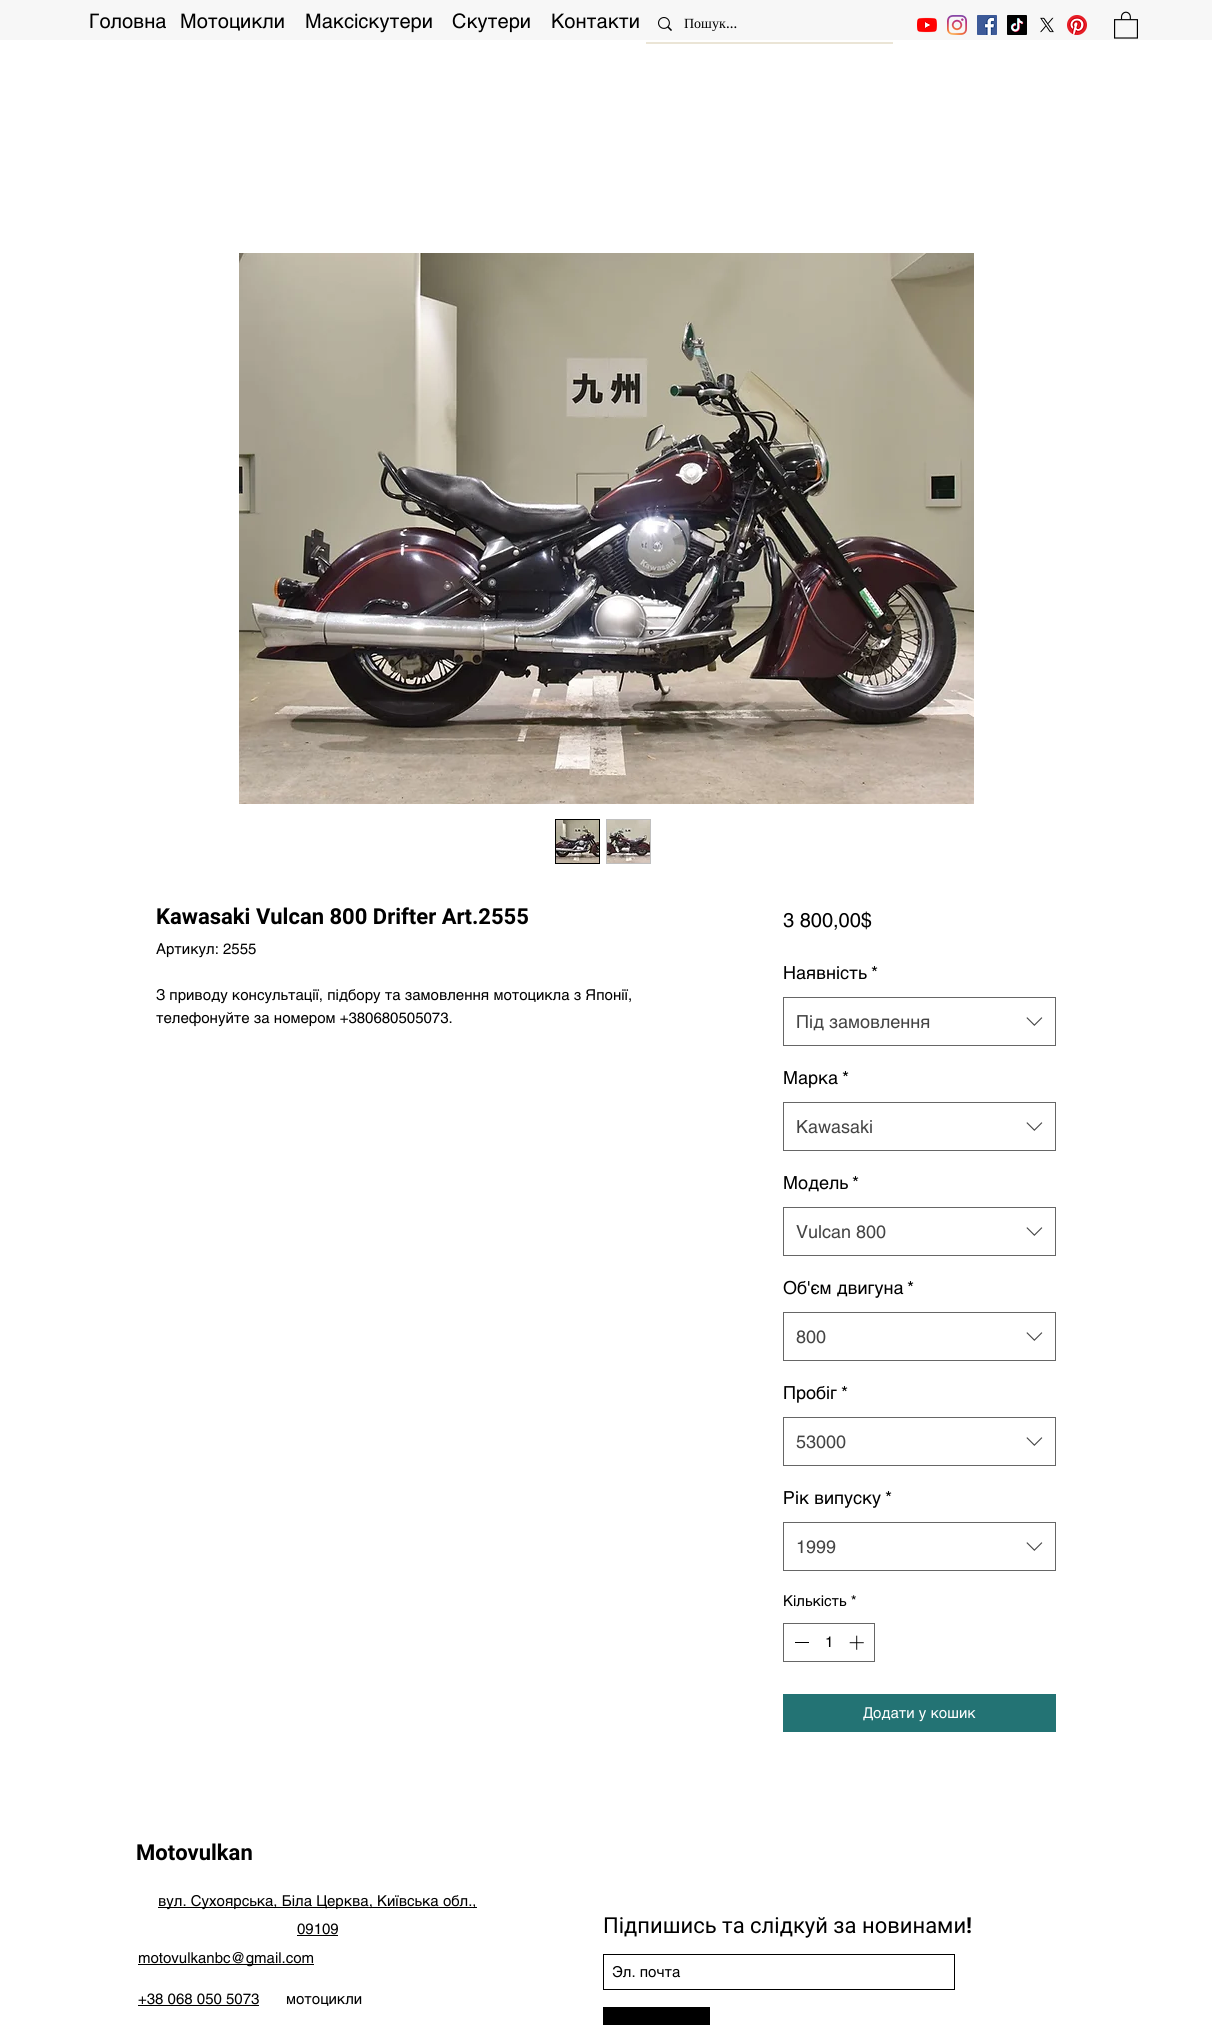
#include <cairo.h>
#include <math.h>
#include <stddef.h>


static void rgb(cairo_t *cr, int r, int g, int b)
{
	cairo_set_source_rgb(cr, r / 255.0, g / 255.0, b / 255.0);
}

static void face(cairo_t *cr, const char *family, double size, int italic, int bold)
{
	cairo_select_font_face(cr, family, italic ? CAIRO_FONT_SLANT_ITALIC : CAIRO_FONT_SLANT_NORMAL,
		bold ? CAIRO_FONT_WEIGHT_BOLD : CAIRO_FONT_WEIGHT_NORMAL);
	cairo_set_font_size(cr, size);
}

static void label(cairo_t *cr, double x, double y, const char *s)
{
	cairo_move_to(cr, x, y);
	cairo_show_text(cr, s);
}

static void rect(cairo_t *cr, double x, double y, double w, double h)
{
	cairo_rectangle(cr, x, y, w, h);
	cairo_fill(cr);
}

static void image(cairo_t *cr, const char *path, double x, double y, double w, double h)
{
	cairo_surface_t *image = cairo_image_surface_create_from_png(path);
	cairo_save(cr);
	cairo_set_source_surface(cr, image, x, y);
	cairo_rectangle(cr, x, y, w, h);
	cairo_fill(cr);
	cairo_restore(cr);
	cairo_surface_destroy(image);
}

static void draw(cairo_t *cr) {
	rgb(cr, 255, 255, 255);
	cairo_paint(cr);
	rgb(cr, 247, 247, 247);
	rect(cr, 0, 0, 1212, 40);
	face(cr, "helvetica", 20, 0, 0);
	rgb(cr, 0, 0, 0);
	label(cr, 89, 28, "Головна");
	label(cr, 180, 28, "Мотоцикли");
	label(cr, 305, 28, "Максіскутери");
	label(cr, 452, 28, "Скутери");
	label(cr, 551, 28, "Контакти");
	rgb(cr, 235, 229, 214);
	rect(cr, 646, 42, 247, 2);
	image(cr, "image0.png", 658, 17, 14, 14);
	face(cr, "Liberation Serif", 14, 0, 0);
	rgb(cr, 0, 0, 0);
	label(cr, 684, 28, "Пошук");
	face(cr, "Libre Baskerville", 14, 0, 0);
	label(cr, 726, 28, "...");
	image(cr, "image1.png", 917, 17, 20, 16);
	image(cr, "image2.png", 947, 15, 20, 20);
	image(cr, "image3.png", 977, 15, 20, 20);
	image(cr, "image4.png", 1007, 15, 20, 20);
	image(cr, "image5.png", 1040, 17, 14, 16);
	image(cr, "image6.png", 1067, 15, 20, 20);
	image(cr, "image7.png", 1114, 11, 24, 28);
	image(cr, "image8.png", 239, 253, 735, 551);
	cairo_rectangle(cr, 555.5, 819.5, 44, 44);
	cairo_set_line_width(cr, 1);
	cairo_stroke(cr);
	image(cr, "image9.png", 556, 820, 43, 43);
	rgb(cr, 191, 191, 191);
	rect(cr, 606, 819, 45, 45);
	image(cr, "image10.png", 607, 820, 43, 43);
	face(cr, "Roboto", 22, 0, 1);
	rgb(cr, 0, 0, 0);
	label(cr, 156, 924, "Kawasaki Vulcan 800 Drifter Art.2555");
	face(cr, "helvetica", 15, 0, 0);
	label(cr, 156, 954, "Артикул: 2555");
	label(cr, 156, 1000, "З приводу консультації, підбору та замовлення мотоцикла з Японії,");
	label(cr, 156, 1023, "телефонуйте за номером +380680505073.");
	face(cr, "helvetica", 20, 0, 0);
	label(cr, 783, 927, "3 800,00$");
	face(cr, "helvetica", 18, 0, 0);
	label(cr, 783, 979, "Наявність");
	label(cr, 871, 979, "*");
	cairo_rectangle(cr, 783.5, 997.5, 272, 48);
	rgb(cr, 102, 102, 102);
	cairo_stroke(cr);
	rgb(cr, 68, 68, 68);
	label(cr, 796, 1028, "Під замовлення");
	image(cr, "image11.png", 1026, 1017, 17, 9);
	rgb(cr, 0, 0, 0);
	label(cr, 783, 1084, "Марка");
	label(cr, 842, 1084, "*");
	cairo_rectangle(cr, 783.5, 1102.5, 272, 48);
	rgb(cr, 102, 102, 102);
	cairo_stroke(cr);
	rgb(cr, 68, 68, 68);
	label(cr, 796, 1133, "Kawasaki");
	image(cr, "image11.png", 1026, 1122, 17, 9);
	rgb(cr, 0, 0, 0);
	label(cr, 783, 1189, "Модель");
	label(cr, 852, 1189, "*");
	cairo_rectangle(cr, 783.5, 1207.5, 272, 48);
	rgb(cr, 102, 102, 102);
	cairo_stroke(cr);
	rgb(cr, 68, 68, 68);
	label(cr, 796, 1238, "Vulcan 800");
	image(cr, "image11.png", 1026, 1227, 17, 9);
	rgb(cr, 0, 0, 0);
	label(cr, 783, 1294, "Об'єм двигуна");
	label(cr, 907, 1294, "*");
	cairo_rectangle(cr, 783.5, 1312.5, 272, 48);
	rgb(cr, 102, 102, 102);
	cairo_stroke(cr);
	rgb(cr, 68, 68, 68);
	label(cr, 796, 1343, "800");
	image(cr, "image11.png", 1026, 1332, 17, 9);
	rgb(cr, 0, 0, 0);
	label(cr, 783, 1399, "Пробіг");
	label(cr, 841, 1399, "*");
	cairo_rectangle(cr, 783.5, 1417.5, 272, 48);
	rgb(cr, 102, 102, 102);
	cairo_stroke(cr);
	rgb(cr, 68, 68, 68);
	label(cr, 796, 1448, "53000");
	image(cr, "image11.png", 1026, 1437, 17, 9);
	rgb(cr, 0, 0, 0);
	label(cr, 783, 1504, "Рік випуску");
	label(cr, 885, 1504, "*");
	cairo_rectangle(cr, 783.5, 1522.5, 272, 48);
	rgb(cr, 102, 102, 102);
	cairo_stroke(cr);
	rgb(cr, 68, 68, 68);
	label(cr, 796, 1553, "1999");
	image(cr, "image11.png", 1026, 1542, 17, 9);
	face(cr, "helvetica", 15, 0, 0);
	rgb(cr, 0, 0, 0);
	label(cr, 783, 1606, "Кількість *");
	cairo_rectangle(cr, 783.5, 1623.5, 91, 38);
	rgb(cr, 102, 102, 102);
	cairo_stroke(cr);
	rgb(cr, 0, 0, 0);
	rect(cr, 795, 1642, 14, 1);
	label(cr, 825, 1647, "1");
	image(cr, "image12.png", 849, 1635, 15, 15);
	rgb(cr, 35, 115, 116);
	rect(cr, 783, 1694, 273, 38);
	rgb(cr, 255, 255, 255);
	label(cr, 863, 1718, "Додати у кошик");
	face(cr, "Roboto", 22, 0, 1);
	rgb(cr, 0, 0, 0);
	label(cr, 136, 1860, "Motovulkan");
	rect(cr, 158, 1907, 319, 1);
	face(cr, "helvetica", 15, 0, 0);
	label(cr, 158, 1906, "вул. Сухоярська, Біла Церква, Київська обл.,");
	label(cr, 297, 1934, "09109");
	rect(cr, 297, 1935, 41, 1);
	face(cr, "Roboto", 22, 0, 0);
	label(cr, 603, 1933, "Підпишись та слідкуй за новинами");
	face(cr, "Roboto", 22, 0, 1);
	label(cr, 966, 1933, "!");
	cairo_rectangle(cr, 603.5, 1954.5, 351, 35);
	cairo_stroke(cr);
	face(cr, "helvetica", 15, 0, 0);
	label(cr, 612, 1977, "Эл. почта");
	rect(cr, 603, 2007, 107, 18);
	rect(cr, 138, 1964, 176, 1);
	label(cr, 138, 1963, "motovulkanbc@gmail.com");
	label(cr, 138, 2004, "+38 068 050 5073");
	rect(cr, 138, 2005, 121, 1);
	label(cr, 286, 2004, "мотоцикли");
}

int main(void) {
	cairo_surface_t *surface = cairo_image_surface_create(CAIRO_FORMAT_RGB24, 1212, 2025);
	cairo_t *cr = cairo_create(surface);
	cairo_font_options_t *options = cairo_font_options_create();
	cairo_font_options_set_hint_metrics(options, CAIRO_HINT_METRICS_OFF);
	cairo_font_options_set_hint_style(options, CAIRO_HINT_STYLE_NONE);
	cairo_set_font_options(cr, options);
	cairo_set_miter_limit(cr, 4);
	draw(cr);
	cairo_surface_write_to_png(surface, "render.png");
	cairo_font_options_destroy(options);
	cairo_destroy(cr);
	cairo_surface_destroy(surface);
	return 0;
}
